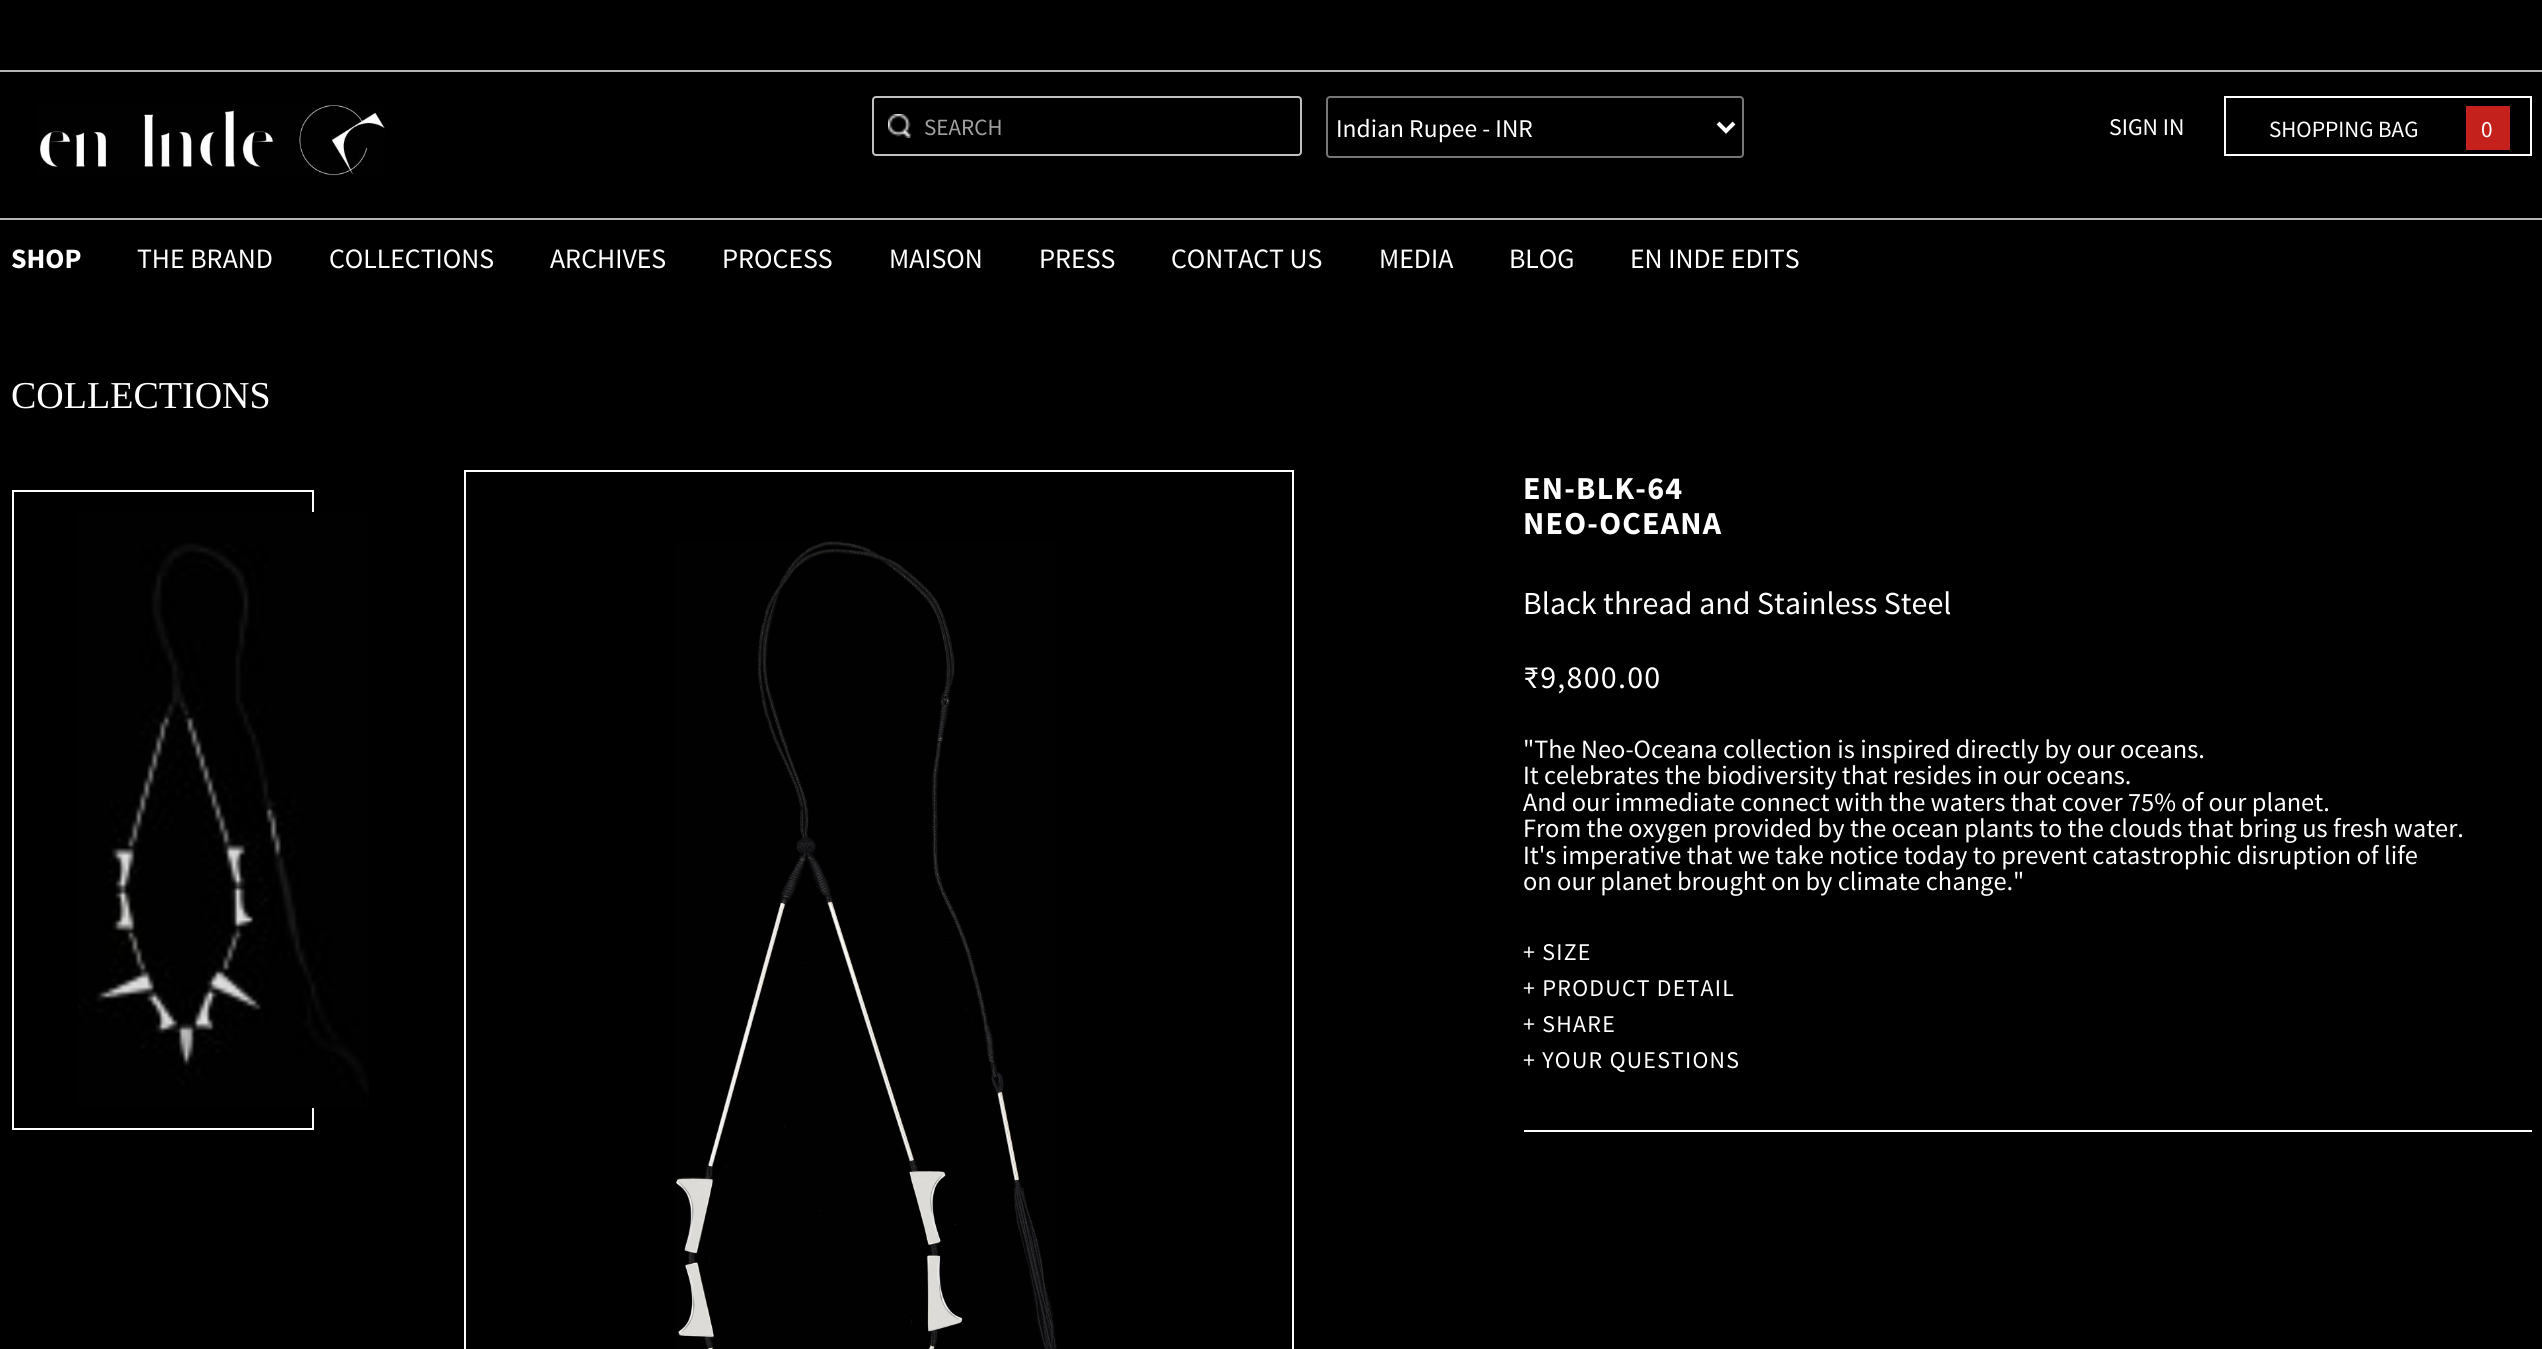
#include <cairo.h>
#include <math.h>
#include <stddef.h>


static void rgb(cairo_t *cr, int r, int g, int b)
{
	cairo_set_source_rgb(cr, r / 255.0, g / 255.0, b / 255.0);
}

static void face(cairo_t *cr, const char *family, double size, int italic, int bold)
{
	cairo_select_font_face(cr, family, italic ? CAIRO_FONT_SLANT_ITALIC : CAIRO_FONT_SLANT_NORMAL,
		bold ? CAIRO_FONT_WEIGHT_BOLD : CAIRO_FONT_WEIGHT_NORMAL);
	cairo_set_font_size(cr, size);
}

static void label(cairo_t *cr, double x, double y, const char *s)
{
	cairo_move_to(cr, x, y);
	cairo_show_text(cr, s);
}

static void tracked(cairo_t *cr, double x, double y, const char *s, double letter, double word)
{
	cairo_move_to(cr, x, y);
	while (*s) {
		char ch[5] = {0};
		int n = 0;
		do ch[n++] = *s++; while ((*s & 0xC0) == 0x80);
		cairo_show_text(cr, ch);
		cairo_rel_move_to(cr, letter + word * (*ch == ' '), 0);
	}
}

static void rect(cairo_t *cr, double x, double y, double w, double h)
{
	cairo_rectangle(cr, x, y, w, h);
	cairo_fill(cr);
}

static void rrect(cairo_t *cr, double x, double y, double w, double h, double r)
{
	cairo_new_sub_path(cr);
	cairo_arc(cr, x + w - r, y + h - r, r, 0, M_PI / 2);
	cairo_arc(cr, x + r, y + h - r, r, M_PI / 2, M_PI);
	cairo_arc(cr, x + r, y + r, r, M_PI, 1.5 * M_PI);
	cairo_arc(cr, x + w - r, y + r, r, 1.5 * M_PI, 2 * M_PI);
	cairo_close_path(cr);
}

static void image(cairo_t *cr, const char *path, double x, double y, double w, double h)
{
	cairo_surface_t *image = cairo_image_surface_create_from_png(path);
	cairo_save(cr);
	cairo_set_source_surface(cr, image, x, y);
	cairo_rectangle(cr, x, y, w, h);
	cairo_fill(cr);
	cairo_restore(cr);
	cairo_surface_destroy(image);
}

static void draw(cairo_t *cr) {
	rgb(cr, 0, 0, 0);
	cairo_paint(cr);
	rgb(cr, 179, 180, 182);
	rect(cr, 0, 70, 2542, 2);
	rect(cr, 0, 218, 2542, 2);
	image(cr, "image0.png", 38, 104, 347, 73);
	rrect(cr, 873, 97, 428, 58, 3);
	rgb(cr, 192, 192, 192);
	cairo_stroke(cr);
	image(cr, "image1.png", 888, 114, 24, 24);
	face(cr, "Source Sans Pro", 23.25, 0, 0);
	rgb(cr, 160, 160, 160);
	label(cr, 924, 135, "SEARCH");
	rrect(cr, 1327, 97, 416, 60, 3);
	rgb(cr, 118, 118, 118);
	cairo_stroke(cr);
	cairo_new_path(cr);
	cairo_move_to(cr, 1718, 123);
	cairo_line_to(cr, 1726, 131);
	cairo_line_to(cr, 1734, 123);
	rgb(cr, 255, 255, 255);
	cairo_set_line_width(cr, 4);
	cairo_stroke(cr);
	face(cr, "Source Sans Pro", 25.5, 0, 0);
	label(cr, 1336, 137, "Indian Rupee - INR");
	face(cr, "Source Sans Pro", 24, 0, 0);
	label(cr, 2109, 135, "SIGN IN");
	cairo_rectangle(cr, 2225, 97, 306, 58);
	cairo_set_line_width(cr, 2);
	cairo_stroke(cr);
	face(cr, "Source Sans Pro", 23.25, 0, 0);
	label(cr, 2269, 137, "SHOPPING BAG");
	rgb(cr, 197, 33, 28);
	rect(cr, 2466, 106, 44, 44);
	rgb(cr, 255, 255, 255);
	label(cr, 2481, 137, "0");
	face(cr, "Source Sans Pro", 28, 0, 1);
	label(cr, 11, 268, "SHOP");
	face(cr, "Source Sans Pro", 28, 0, 0);
	label(cr, 137, 268, "THE BRAND");
	label(cr, 329, 268, "COLLECTIONS");
	label(cr, 550, 268, "ARCHIVES");
	label(cr, 722, 268, "PROCESS");
	label(cr, 889, 268, "MAISON");
	label(cr, 1039, 268, "PRESS");
	label(cr, 1171, 268, "CONTACT US");
	label(cr, 1379, 268, "MEDIA");
	label(cr, 1509, 268, "BLOG");
	label(cr, 1630, 268, "EN INDE EDITS");
	face(cr, "Liberation Serif", 38, 0, 0);
	label(cr, 11, 408, "COLLECTIONS");
	cairo_rectangle(cr, 13, 491, 300, 638);
	cairo_stroke(cr);
	image(cr, "image2.png", 78, 512, 291, 596);
	cairo_rectangle(cr, 465, 471, 828, 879);
	cairo_stroke(cr);
	image(cr, "image3.png", 675, 540, 382, 809);
	face(cr, "Source Sans Pro", 32, 0, 1);
	tracked(cr, 1523, 499, "EN-BLK-64", 1.25, 0);
	tracked(cr, 1523, 534, "NEO-OCEANA", 1.25, 0);
	face(cr, "Source Sans Pro", 32, 0, 0);
	label(cr, 1523, 614, "Black thread and Stainless Steel");
	tracked(cr, 1523, 688, "₹9,800.00", 1.25, 0);
	face(cr, "Source Sans Pro", 26.4, 0, 0);
	label(cr, 1523, 758, "\"The Neo-Oceana collection is inspired directly by our oceans.");
	label(cr, 1523, 784, "It celebrates the biodiversity that resides in our oceans.");
	label(cr, 1523, 811, "And our immediate connect with the waters that cover 75% of our planet.");
	label(cr, 1523, 837, "From the oxygen provided by the ocean plants to the clouds that bring us fresh water.");
	label(cr, 1523, 864, "It's imperative that we take notice today to prevent catastrophic disruption of life");
	label(cr, 1523, 890, "on our planet brought on by climate change.\"");
	face(cr, "Source Sans Pro", 24, 0, 0);
	tracked(cr, 1523, 960, "+ SIZE", 1.25, 0);
	tracked(cr, 1523, 996, "+ PRODUCT DETAIL", 1.25, 0);
	tracked(cr, 1523, 1032, "+ SHARE", 1.25, 0);
	tracked(cr, 1523, 1068, "+ YOUR QUESTIONS", 1.25, 0);
	rect(cr, 1524, 1130, 1008, 2);
}

int main(void) {
	cairo_surface_t *surface = cairo_image_surface_create(CAIRO_FORMAT_RGB24, 2542, 1349);
	cairo_t *cr = cairo_create(surface);
	cairo_font_options_t *options = cairo_font_options_create();
	cairo_font_options_set_hint_metrics(options, CAIRO_HINT_METRICS_OFF);
	cairo_font_options_set_hint_style(options, CAIRO_HINT_STYLE_NONE);
	cairo_set_font_options(cr, options);
	cairo_set_miter_limit(cr, 4);
	draw(cr);
	cairo_surface_write_to_png(surface, "render.png");
	cairo_font_options_destroy(options);
	cairo_destroy(cr);
	cairo_surface_destroy(surface);
	return 0;
}
